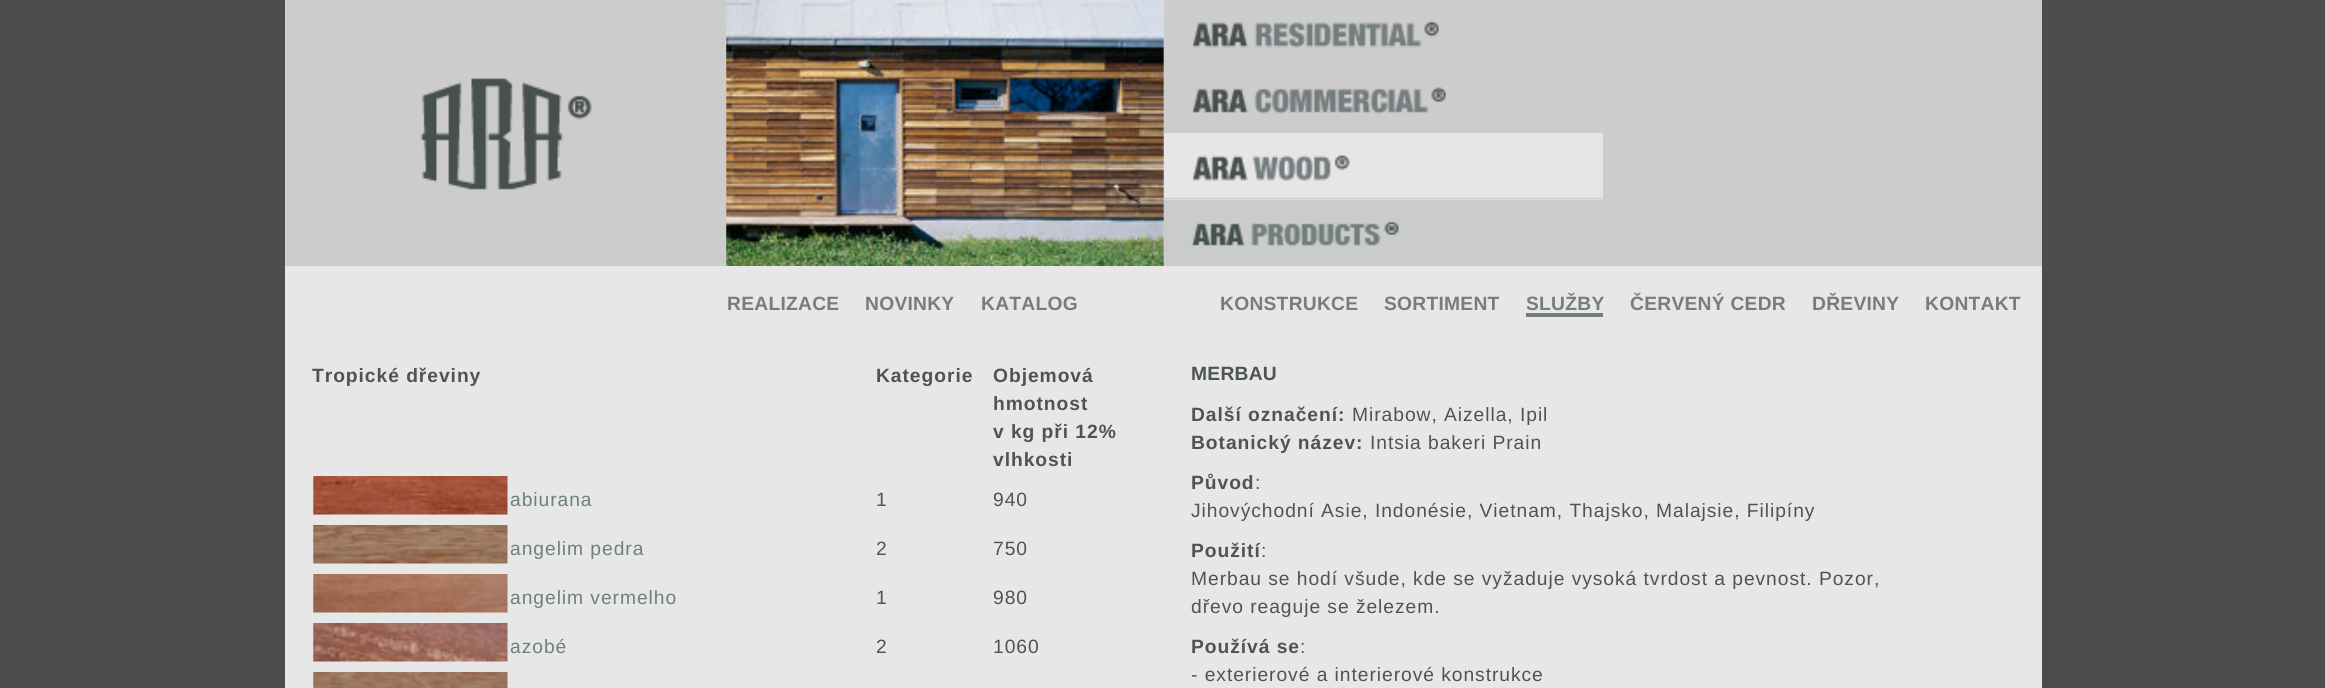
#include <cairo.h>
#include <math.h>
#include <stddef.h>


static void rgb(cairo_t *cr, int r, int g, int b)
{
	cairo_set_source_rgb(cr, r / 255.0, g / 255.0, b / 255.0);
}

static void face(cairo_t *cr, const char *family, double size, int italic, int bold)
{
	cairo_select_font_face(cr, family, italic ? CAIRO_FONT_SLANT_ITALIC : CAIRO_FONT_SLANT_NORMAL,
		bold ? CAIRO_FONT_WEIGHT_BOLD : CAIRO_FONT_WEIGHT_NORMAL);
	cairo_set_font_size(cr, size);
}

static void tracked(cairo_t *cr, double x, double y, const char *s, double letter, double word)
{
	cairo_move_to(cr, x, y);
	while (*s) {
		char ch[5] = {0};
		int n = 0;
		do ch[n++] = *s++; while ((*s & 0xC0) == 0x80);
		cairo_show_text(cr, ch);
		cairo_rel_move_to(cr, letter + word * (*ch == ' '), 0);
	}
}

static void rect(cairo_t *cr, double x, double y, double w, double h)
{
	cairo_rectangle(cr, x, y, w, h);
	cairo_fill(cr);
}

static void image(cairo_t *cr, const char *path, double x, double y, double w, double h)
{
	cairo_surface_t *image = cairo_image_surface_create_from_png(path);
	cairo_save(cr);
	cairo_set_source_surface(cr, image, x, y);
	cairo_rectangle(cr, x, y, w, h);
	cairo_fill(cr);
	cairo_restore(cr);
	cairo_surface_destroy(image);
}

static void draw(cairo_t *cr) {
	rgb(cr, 76, 76, 76);
	cairo_paint(cr);
	rgb(cr, 231, 231, 231);
	rect(cr, 285, 0, 1757, 688);
	image(cr, "image0.png", 726, 0, 438, 266);
	image(cr, "image1.png", 285, 0, 442, 266);
	rgb(cr, 205, 205, 205);
	rect(cr, 1164, 0, 439, 133);
	image(cr, "image2.png", 1163, 20, 278, 46);
	image(cr, "image3.png", 1163, 67, 283, 66);
	image(cr, "image4.png", 1163, 133, 440, 67);
	image(cr, "image5.png", 1163, 199, 440, 67);
	rgb(cr, 204, 204, 204);
	rect(cr, 1603, 0, 439, 266);
	face(cr, "Liberation Sans", 19.25, 0, 1);
	rgb(cr, 117, 125, 126);
	tracked(cr, 727, 310, "REALIZACE", 0.25, 0);
	tracked(cr, 865, 310, "NOVINKY", 0.25, 0);
	tracked(cr, 981, 310, "KATALOG", 0.25, 0);
	tracked(cr, 1220, 310, "KONSTRUKCE", 0.25, 0);
	tracked(cr, 1384, 310, "SORTIMENT", 0.25, 0);
	tracked(cr, 1526, 310, "SLUŽBY", 0.25, 0);
	rect(cr, 1526, 313, 77, 4);
	tracked(cr, 1630, 310, "ČERVENÝ CEDR", 0.25, 0);
	tracked(cr, 1812, 310, "DŘEVINY", 0.25, 0);
	tracked(cr, 1925, 310, "KONTAKT", 0.25, 0);
	rgb(cr, 78, 84, 84);
	tracked(cr, 312, 382, "Tropické dřeviny", 0.95, 0);
	tracked(cr, 876, 382, "Kategorie", 0.95, 0);
	tracked(cr, 993, 382, "Objemová", 0.95, 0);
	tracked(cr, 993, 410, "hmotnost", 0.95, 0);
	tracked(cr, 993, 438, "v kg při 12%", 0.95, 0);
	tracked(cr, 993, 466, "vlhkosti", 0.95, 0);
	image(cr, "image6.png", 313, 476, 195, 39);
	face(cr, "Liberation Sans", 19.25, 0, 0);
	rgb(cr, 111, 126, 127);
	tracked(cr, 510, 506, "abiurana", 0.95, 0);
	rgb(cr, 78, 84, 84);
	tracked(cr, 876, 506, "1", 0.95, 0);
	tracked(cr, 993, 506, "940", 0.95, 0);
	image(cr, "image7.png", 313, 525, 195, 39);
	rgb(cr, 111, 126, 127);
	tracked(cr, 510, 555, "angelim pedra", 0.95, 0);
	rgb(cr, 78, 84, 84);
	tracked(cr, 876, 555, "2", 0.95, 0);
	tracked(cr, 993, 555, "750", 0.95, 0);
	image(cr, "image8.png", 313, 574, 195, 39);
	rgb(cr, 111, 126, 127);
	tracked(cr, 510, 604, "angelim vermelho", 0.95, 0);
	rgb(cr, 78, 84, 84);
	tracked(cr, 876, 604, "1", 0.95, 0);
	tracked(cr, 993, 604, "980", 0.95, 0);
	image(cr, "image9.png", 313, 623, 195, 39);
	rgb(cr, 111, 126, 127);
	tracked(cr, 510, 653, "azobé", 0.95, 0);
	rgb(cr, 78, 84, 84);
	tracked(cr, 876, 653, "2", 0.95, 0);
	tracked(cr, 993, 653, "1060", 0.95, 0);
	image(cr, "image10.png", 313, 672, 195, 16);
	face(cr, "Liberation Sans", 19.25, 0, 1);
	tracked(cr, 1191, 380, "MERBAU", 0.25, 0);
	tracked(cr, 1191, 421, "Další označení:", 0.95, 0);
	face(cr, "Liberation Sans", 19.25, 0, 0);
	tracked(cr, 1352, 421, "Mirabow, Aizella, Ipil", 0.95, 0);
	face(cr, "Liberation Sans", 19.25, 0, 1);
	tracked(cr, 1191, 449, "Botanický název:", 0.95, 0);
	face(cr, "Liberation Sans", 19.25, 0, 0);
	tracked(cr, 1370, 449, "Intsia bakeri Prain", 0.95, 0);
	face(cr, "Liberation Sans", 19.25, 0, 1);
	tracked(cr, 1191, 489, "Původ", 0.95, 0);
	face(cr, "Liberation Sans", 19.25, 0, 0);
	tracked(cr, 1255, 489, ":", 0.95, 0);
	tracked(cr, 1191, 517, "Jihovýchodní Asie, Indonésie, Vietnam, Thajsko, Malajsie, Filipíny", 0.95, 0);
	face(cr, "Liberation Sans", 19.25, 0, 1);
	tracked(cr, 1191, 557, "Použití", 0.95, 0);
	face(cr, "Liberation Sans", 19.25, 0, 0);
	tracked(cr, 1261, 557, ":", 0.95, 0);
	tracked(cr, 1191, 585, "Merbau se hodí všude, kde se vyžaduje vysoká tvrdost a pevnost. Pozor,", 0.95, 0);
	tracked(cr, 1191, 613, "dřevo reaguje se železem.", 0.95, 0);
	face(cr, "Liberation Sans", 19.25, 0, 1);
	tracked(cr, 1191, 653, "Používá se", 0.95, 0);
	face(cr, "Liberation Sans", 19.25, 0, 0);
	tracked(cr, 1300, 653, ":", 0.95, 0);
	tracked(cr, 1191, 681, "- exterierové a interierové konstrukce", 0.95, 0);
}

int main(void) {
	cairo_surface_t *surface = cairo_image_surface_create(CAIRO_FORMAT_RGB24, 2325, 688);
	cairo_t *cr = cairo_create(surface);
	cairo_font_options_t *options = cairo_font_options_create();
	cairo_font_options_set_hint_metrics(options, CAIRO_HINT_METRICS_OFF);
	cairo_font_options_set_hint_style(options, CAIRO_HINT_STYLE_NONE);
	cairo_set_font_options(cr, options);
	cairo_set_miter_limit(cr, 4);
	draw(cr);
	cairo_surface_write_to_png(surface, "render.png");
	cairo_font_options_destroy(options);
	cairo_destroy(cr);
	cairo_surface_destroy(surface);
	return 0;
}
